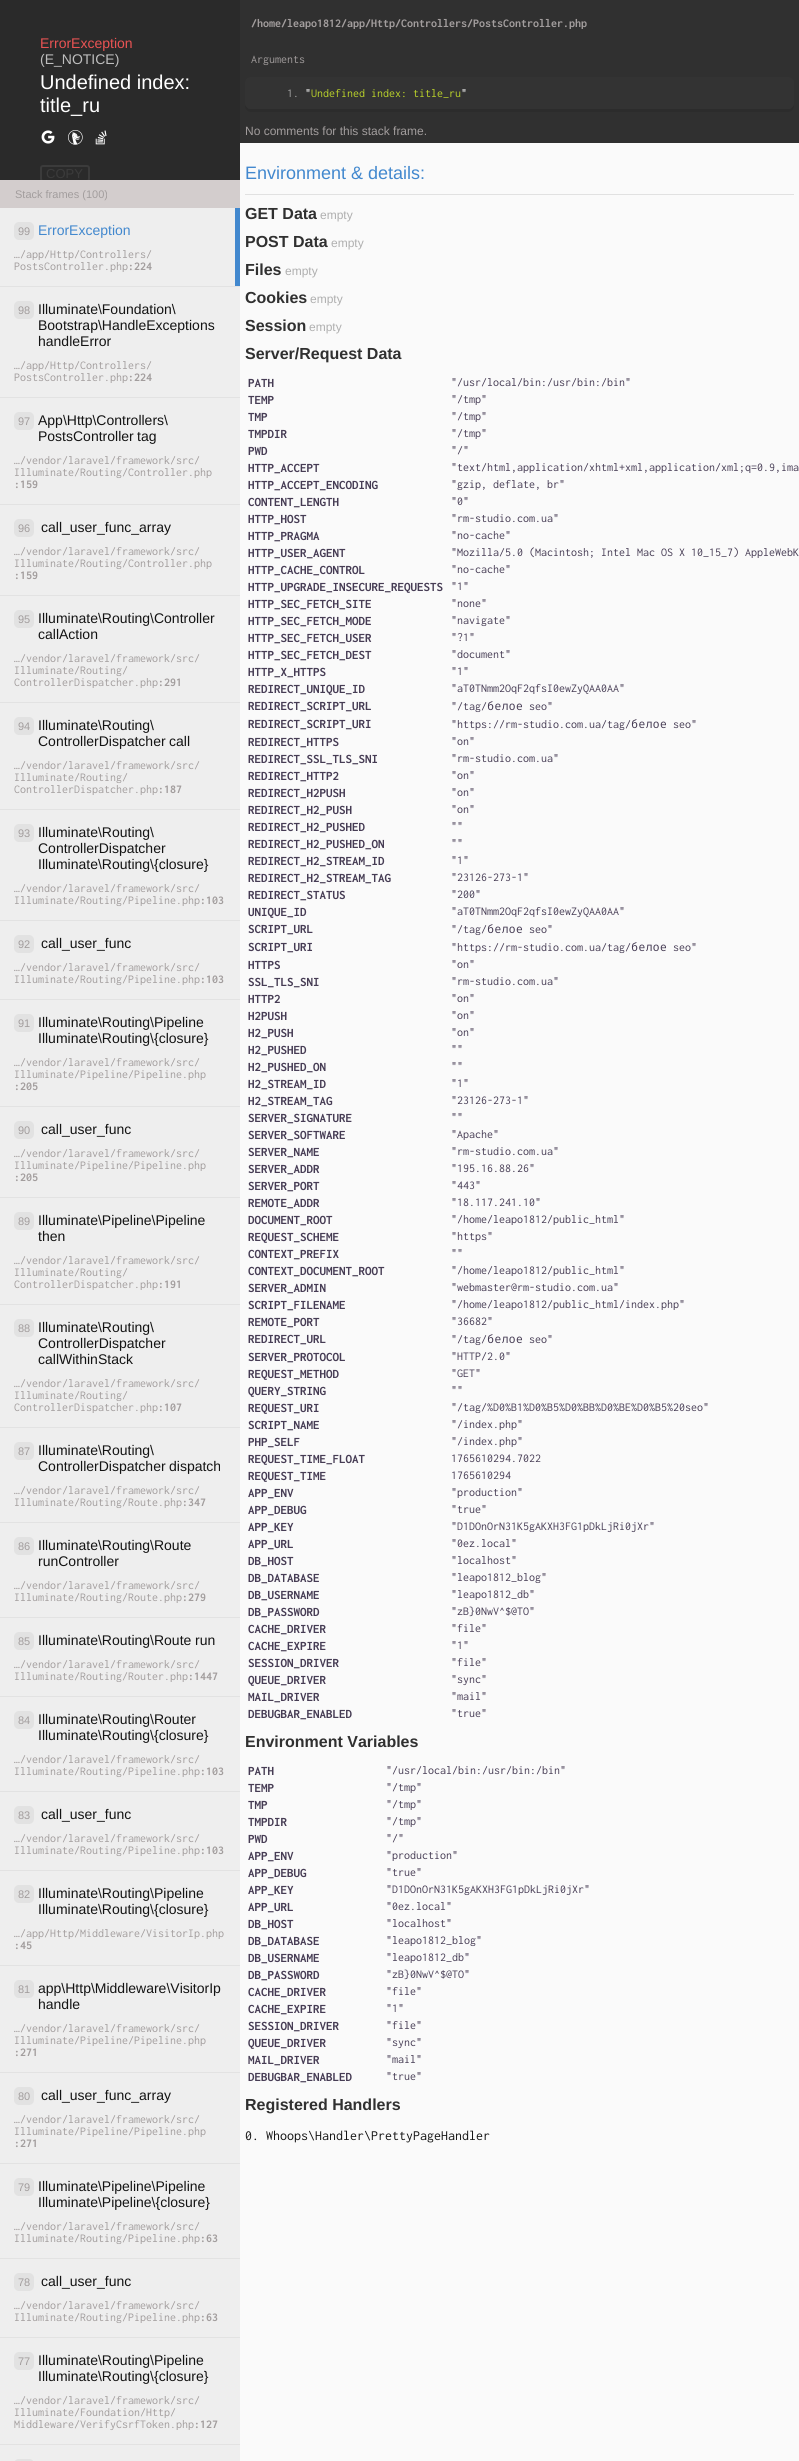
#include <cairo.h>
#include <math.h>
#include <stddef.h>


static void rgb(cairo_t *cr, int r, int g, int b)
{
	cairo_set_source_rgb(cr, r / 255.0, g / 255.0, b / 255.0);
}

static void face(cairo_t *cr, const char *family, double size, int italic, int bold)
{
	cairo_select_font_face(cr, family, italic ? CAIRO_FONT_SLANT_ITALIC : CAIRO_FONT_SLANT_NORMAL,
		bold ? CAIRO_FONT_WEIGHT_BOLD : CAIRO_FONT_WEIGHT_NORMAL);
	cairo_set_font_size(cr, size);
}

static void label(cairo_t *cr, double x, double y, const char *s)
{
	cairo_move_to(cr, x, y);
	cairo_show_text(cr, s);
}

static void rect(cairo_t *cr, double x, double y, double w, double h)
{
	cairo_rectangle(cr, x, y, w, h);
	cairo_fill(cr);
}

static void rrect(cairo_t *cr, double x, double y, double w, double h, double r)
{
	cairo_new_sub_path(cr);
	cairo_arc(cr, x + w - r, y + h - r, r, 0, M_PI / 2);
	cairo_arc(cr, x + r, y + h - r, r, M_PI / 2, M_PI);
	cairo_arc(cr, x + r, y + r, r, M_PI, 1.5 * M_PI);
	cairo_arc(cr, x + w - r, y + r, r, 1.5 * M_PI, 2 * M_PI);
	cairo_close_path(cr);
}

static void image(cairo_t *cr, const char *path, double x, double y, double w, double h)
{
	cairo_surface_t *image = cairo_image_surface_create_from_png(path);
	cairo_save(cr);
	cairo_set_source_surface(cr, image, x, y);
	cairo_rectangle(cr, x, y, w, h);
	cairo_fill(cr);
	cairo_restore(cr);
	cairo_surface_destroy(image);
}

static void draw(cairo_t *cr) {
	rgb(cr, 211, 205, 205);
	cairo_paint(cr);
	rgb(cr, 42, 42, 42);
	rect(cr, 0, 0, 240, 180);
	face(cr, "Liberation Sans", 14, 0, 0);
	rgb(cr, 233, 83, 83);
	label(cr, 40, 48, "ErrorException");
	rgb(cr, 190, 190, 190);
	label(cr, 40, 64, "(E_NOTICE)");
	face(cr, "Liberation Sans", 20, 0, 0);
	rgb(cr, 255, 255, 255);
	label(cr, 40, 89, "Undefined index:");
	label(cr, 40, 112, "title_ru");
	image(cr, "image0.png", 41, 130, 14, 14);
	image(cr, "image1.png", 68, 130, 15, 15);
	image(cr, "image2.png", 95, 130, 12, 15);
	cairo_save(cr);
	cairo_rectangle(cr, 0, 0, 240, 180);
	cairo_clip(cr);
	rrect(cr, 41, 166, 48, 15, 2);
	rgb(cr, 59, 59, 59);
	cairo_stroke(cr);
	cairo_restore(cr);
	face(cr, "Liberation Sans", 13, 0, 0);
	rgb(cr, 59, 59, 59);
	label(cr, 46, 178, "COPY");
	face(cr, "Liberation Sans", 11, 0, 0);
	rgb(cr, 162, 157, 157);
	label(cr, 15, 198, "Stack frames (100)");
	rgb(cr, 238, 238, 238);
	rect(cr, 0, 208, 235, 78);
	rgb(cr, 66, 136, 206);
	rect(cr, 235, 208, 5, 78);
	rgb(cr, 226, 226, 226);
	rect(cr, 0, 286, 240, 1);
	rrect(cr, 14, 222, 20, 18, 5);
	cairo_fill(cr);
	rgb(cr, 162, 157, 157);
	label(cr, 18, 235, "99");
	face(cr, "Liberation Sans", 14, 0, 0);
	rgb(cr, 66, 136, 206);
	label(cr, 38, 235, "ErrorException");
	face(cr, "Inconsolata", 12, 0, 0);
	rgb(cr, 162, 157, 157);
	label(cr, 14, 258, "…/app/Http/Controllers/");
	label(cr, 14, 270, "PostsController.php");
	face(cr, "Inconsolata", 12, 0, 1);
	label(cr, 128, 270, ":224");
	rgb(cr, 238, 238, 238);
	rect(cr, 0, 287, 240, 110);
	rgb(cr, 226, 226, 226);
	rect(cr, 0, 397, 240, 1);
	rrect(cr, 14, 301, 20, 18, 5);
	cairo_fill(cr);
	face(cr, "Liberation Sans", 11, 0, 0);
	rgb(cr, 162, 157, 157);
	label(cr, 18, 314, "98");
	face(cr, "Liberation Sans", 14, 0, 0);
	rgb(cr, 19, 19, 19);
	label(cr, 38, 314, "Illuminate\\Foundation\\");
	label(cr, 38, 330, "Bootstrap\\HandleExceptions");
	label(cr, 38, 346, "handleError");
	face(cr, "Inconsolata", 12, 0, 0);
	rgb(cr, 162, 157, 157);
	label(cr, 14, 369, "…/app/Http/Controllers/");
	label(cr, 14, 381, "PostsController.php");
	face(cr, "Inconsolata", 12, 0, 1);
	label(cr, 128, 381, ":224");
	rgb(cr, 238, 238, 238);
	rect(cr, 0, 398, 240, 106);
	rgb(cr, 226, 226, 226);
	rect(cr, 0, 504, 240, 1);
	rrect(cr, 14, 412, 20, 18, 5);
	cairo_fill(cr);
	face(cr, "Liberation Sans", 11, 0, 0);
	rgb(cr, 162, 157, 157);
	label(cr, 18, 425, "97");
	face(cr, "Liberation Sans", 14, 0, 0);
	rgb(cr, 19, 19, 19);
	label(cr, 38, 425, "App\\Http\\Controllers\\");
	label(cr, 38, 441, "PostsController");
	label(cr, 137, 441, "tag");
	face(cr, "Inconsolata", 12, 0, 0);
	rgb(cr, 162, 157, 157);
	label(cr, 14, 464, "…/vendor/laravel/framework/src/");
	label(cr, 14, 476, "Illuminate/Routing/Controller.php");
	face(cr, "Inconsolata", 12, 0, 1);
	label(cr, 14, 488, ":159");
	rgb(cr, 238, 238, 238);
	rect(cr, 0, 505, 240, 90);
	rgb(cr, 226, 226, 226);
	rect(cr, 0, 595, 240, 1);
	rrect(cr, 14, 519, 20, 18, 5);
	cairo_fill(cr);
	face(cr, "Liberation Sans", 11, 0, 0);
	rgb(cr, 162, 157, 157);
	label(cr, 18, 532, "96");
	face(cr, "Liberation Sans", 14, 0, 0);
	rgb(cr, 19, 19, 19);
	label(cr, 41, 532, "call_user_func_array");
	face(cr, "Inconsolata", 12, 0, 0);
	rgb(cr, 162, 157, 157);
	label(cr, 14, 555, "…/vendor/laravel/framework/src/");
	label(cr, 14, 567, "Illuminate/Routing/Controller.php");
	face(cr, "Inconsolata", 12, 0, 1);
	label(cr, 14, 579, ":159");
	rgb(cr, 238, 238, 238);
	rect(cr, 0, 596, 240, 106);
	rgb(cr, 226, 226, 226);
	rect(cr, 0, 702, 240, 1);
	rrect(cr, 14, 610, 20, 18, 5);
	cairo_fill(cr);
	face(cr, "Liberation Sans", 11, 0, 0);
	rgb(cr, 162, 157, 157);
	label(cr, 18, 623, "95");
	face(cr, "Liberation Sans", 14, 0, 0);
	rgb(cr, 19, 19, 19);
	label(cr, 38, 623, "Illuminate\\Routing\\Controller");
	label(cr, 38, 639, "callAction");
	face(cr, "Inconsolata", 12, 0, 0);
	rgb(cr, 162, 157, 157);
	label(cr, 14, 662, "…/vendor/laravel/framework/src/");
	label(cr, 14, 674, "Illuminate/Routing/");
	label(cr, 14, 686, "ControllerDispatcher.php");
	face(cr, "Inconsolata", 12, 0, 1);
	label(cr, 158, 686, ":291");
	rgb(cr, 238, 238, 238);
	rect(cr, 0, 703, 240, 106);
	rgb(cr, 226, 226, 226);
	rect(cr, 0, 809, 240, 1);
	rrect(cr, 14, 717, 20, 18, 5);
	cairo_fill(cr);
	face(cr, "Liberation Sans", 11, 0, 0);
	rgb(cr, 162, 157, 157);
	label(cr, 18, 730, "94");
	face(cr, "Liberation Sans", 14, 0, 0);
	rgb(cr, 19, 19, 19);
	label(cr, 38, 730, "Illuminate\\Routing\\");
	label(cr, 38, 746, "ControllerDispatcher");
	label(cr, 169, 746, "call");
	face(cr, "Inconsolata", 12, 0, 0);
	rgb(cr, 162, 157, 157);
	label(cr, 14, 769, "…/vendor/laravel/framework/src/");
	label(cr, 14, 781, "Illuminate/Routing/");
	label(cr, 14, 793, "ControllerDispatcher.php");
	face(cr, "Inconsolata", 12, 0, 1);
	label(cr, 158, 793, ":187");
	rgb(cr, 238, 238, 238);
	rect(cr, 0, 810, 240, 110);
	rgb(cr, 226, 226, 226);
	rect(cr, 0, 920, 240, 1);
	rrect(cr, 14, 824, 20, 18, 5);
	cairo_fill(cr);
	face(cr, "Liberation Sans", 11, 0, 0);
	rgb(cr, 162, 157, 157);
	label(cr, 18, 837, "93");
	face(cr, "Liberation Sans", 14, 0, 0);
	rgb(cr, 19, 19, 19);
	label(cr, 38, 837, "Illuminate\\Routing\\");
	label(cr, 38, 853, "ControllerDispatcher");
	label(cr, 38, 869, "Illuminate\\Routing\\{closure}");
	face(cr, "Inconsolata", 12, 0, 0);
	rgb(cr, 162, 157, 157);
	label(cr, 14, 892, "…/vendor/laravel/framework/src/");
	label(cr, 14, 904, "Illuminate/Routing/Pipeline.php");
	face(cr, "Inconsolata", 12, 0, 1);
	label(cr, 200, 904, ":103");
	rgb(cr, 238, 238, 238);
	rect(cr, 0, 921, 240, 78);
	rgb(cr, 226, 226, 226);
	rect(cr, 0, 999, 240, 1);
	rrect(cr, 14, 935, 20, 18, 5);
	cairo_fill(cr);
	face(cr, "Liberation Sans", 11, 0, 0);
	rgb(cr, 162, 157, 157);
	label(cr, 18, 948, "92");
	face(cr, "Liberation Sans", 14, 0, 0);
	rgb(cr, 19, 19, 19);
	label(cr, 41, 948, "call_user_func");
	face(cr, "Inconsolata", 12, 0, 0);
	rgb(cr, 162, 157, 157);
	label(cr, 14, 971, "…/vendor/laravel/framework/src/");
	label(cr, 14, 983, "Illuminate/Routing/Pipeline.php");
	face(cr, "Inconsolata", 12, 0, 1);
	label(cr, 200, 983, ":103");
	rgb(cr, 238, 238, 238);
	rect(cr, 0, 1000, 240, 106);
	rgb(cr, 226, 226, 226);
	rect(cr, 0, 1106, 240, 1);
	rrect(cr, 14, 1014, 20, 18, 5);
	cairo_fill(cr);
	face(cr, "Liberation Sans", 11, 0, 0);
	rgb(cr, 162, 157, 157);
	label(cr, 18, 1027, "91");
	face(cr, "Liberation Sans", 14, 0, 0);
	rgb(cr, 19, 19, 19);
	label(cr, 38, 1027, "Illuminate\\Routing\\Pipeline");
	label(cr, 38, 1043, "Illuminate\\Routing\\{closure}");
	face(cr, "Inconsolata", 12, 0, 0);
	rgb(cr, 162, 157, 157);
	label(cr, 14, 1066, "…/vendor/laravel/framework/src/");
	label(cr, 14, 1078, "Illuminate/Pipeline/Pipeline.php");
	face(cr, "Inconsolata", 12, 0, 1);
	label(cr, 14, 1090, ":205");
	rgb(cr, 238, 238, 238);
	rect(cr, 0, 1107, 240, 90);
	rgb(cr, 226, 226, 226);
	rect(cr, 0, 1197, 240, 1);
	rrect(cr, 14, 1121, 20, 18, 5);
	cairo_fill(cr);
	face(cr, "Liberation Sans", 11, 0, 0);
	rgb(cr, 162, 157, 157);
	label(cr, 18, 1134, "90");
	face(cr, "Liberation Sans", 14, 0, 0);
	rgb(cr, 19, 19, 19);
	label(cr, 41, 1134, "call_user_func");
	face(cr, "Inconsolata", 12, 0, 0);
	rgb(cr, 162, 157, 157);
	label(cr, 14, 1157, "…/vendor/laravel/framework/src/");
	label(cr, 14, 1169, "Illuminate/Pipeline/Pipeline.php");
	face(cr, "Inconsolata", 12, 0, 1);
	label(cr, 14, 1181, ":205");
	rgb(cr, 238, 238, 238);
	rect(cr, 0, 1198, 240, 106);
	rgb(cr, 226, 226, 226);
	rect(cr, 0, 1304, 240, 1);
	rrect(cr, 14, 1212, 20, 18, 5);
	cairo_fill(cr);
	face(cr, "Liberation Sans", 11, 0, 0);
	rgb(cr, 162, 157, 157);
	label(cr, 18, 1225, "89");
	face(cr, "Liberation Sans", 14, 0, 0);
	rgb(cr, 19, 19, 19);
	label(cr, 38, 1225, "Illuminate\\Pipeline\\Pipeline");
	label(cr, 38, 1241, "then");
	face(cr, "Inconsolata", 12, 0, 0);
	rgb(cr, 162, 157, 157);
	label(cr, 14, 1264, "…/vendor/laravel/framework/src/");
	label(cr, 14, 1276, "Illuminate/Routing/");
	label(cr, 14, 1288, "ControllerDispatcher.php");
	face(cr, "Inconsolata", 12, 0, 1);
	label(cr, 158, 1288, ":191");
	rgb(cr, 238, 238, 238);
	rect(cr, 0, 1305, 240, 122);
	rgb(cr, 226, 226, 226);
	rect(cr, 0, 1427, 240, 1);
	rrect(cr, 14, 1319, 20, 18, 5);
	cairo_fill(cr);
	face(cr, "Liberation Sans", 11, 0, 0);
	rgb(cr, 162, 157, 157);
	label(cr, 18, 1332, "88");
	face(cr, "Liberation Sans", 14, 0, 0);
	rgb(cr, 19, 19, 19);
	label(cr, 38, 1332, "Illuminate\\Routing\\");
	label(cr, 38, 1348, "ControllerDispatcher");
	label(cr, 38, 1364, "callWithinStack");
	face(cr, "Inconsolata", 12, 0, 0);
	rgb(cr, 162, 157, 157);
	label(cr, 14, 1387, "…/vendor/laravel/framework/src/");
	label(cr, 14, 1399, "Illuminate/Routing/");
	label(cr, 14, 1411, "ControllerDispatcher.php");
	face(cr, "Inconsolata", 12, 0, 1);
	label(cr, 158, 1411, ":107");
	rgb(cr, 238, 238, 238);
	rect(cr, 0, 1428, 240, 94);
	rgb(cr, 226, 226, 226);
	rect(cr, 0, 1522, 240, 1);
	rrect(cr, 14, 1442, 20, 18, 5);
	cairo_fill(cr);
	face(cr, "Liberation Sans", 11, 0, 0);
	rgb(cr, 162, 157, 157);
	label(cr, 18, 1455, "87");
	face(cr, "Liberation Sans", 14, 0, 0);
	rgb(cr, 19, 19, 19);
	label(cr, 38, 1455, "Illuminate\\Routing\\");
	label(cr, 38, 1471, "ControllerDispatcher");
	label(cr, 169, 1471, "dispatch");
	face(cr, "Inconsolata", 12, 0, 0);
	rgb(cr, 162, 157, 157);
	label(cr, 14, 1494, "…/vendor/laravel/framework/src/");
	label(cr, 14, 1506, "Illuminate/Routing/Route.php");
	face(cr, "Inconsolata", 12, 0, 1);
	label(cr, 182, 1506, ":347");
	rgb(cr, 238, 238, 238);
	rect(cr, 0, 1523, 240, 94);
	rgb(cr, 226, 226, 226);
	rect(cr, 0, 1617, 240, 1);
	rrect(cr, 14, 1537, 20, 18, 5);
	cairo_fill(cr);
	face(cr, "Liberation Sans", 11, 0, 0);
	rgb(cr, 162, 157, 157);
	label(cr, 18, 1550, "86");
	face(cr, "Liberation Sans", 14, 0, 0);
	rgb(cr, 19, 19, 19);
	label(cr, 38, 1550, "Illuminate\\Routing\\Route");
	label(cr, 38, 1566, "runController");
	face(cr, "Inconsolata", 12, 0, 0);
	rgb(cr, 162, 157, 157);
	label(cr, 14, 1589, "…/vendor/laravel/framework/src/");
	label(cr, 14, 1601, "Illuminate/Routing/Route.php");
	face(cr, "Inconsolata", 12, 0, 1);
	label(cr, 182, 1601, ":279");
	rgb(cr, 238, 238, 238);
	rect(cr, 0, 1618, 240, 78);
	rgb(cr, 226, 226, 226);
	rect(cr, 0, 1696, 240, 1);
	rrect(cr, 14, 1632, 20, 18, 5);
	cairo_fill(cr);
	face(cr, "Liberation Sans", 11, 0, 0);
	rgb(cr, 162, 157, 157);
	label(cr, 18, 1645, "85");
	face(cr, "Liberation Sans", 14, 0, 0);
	rgb(cr, 19, 19, 19);
	label(cr, 38, 1645, "Illuminate\\Routing\\Route");
	label(cr, 195, 1645, "run");
	face(cr, "Inconsolata", 12, 0, 0);
	rgb(cr, 162, 157, 157);
	label(cr, 14, 1668, "…/vendor/laravel/framework/src/");
	label(cr, 14, 1680, "Illuminate/Routing/Router.php");
	face(cr, "Inconsolata", 12, 0, 1);
	label(cr, 188, 1680, ":1447");
	rgb(cr, 238, 238, 238);
	rect(cr, 0, 1697, 240, 94);
	rgb(cr, 226, 226, 226);
	rect(cr, 0, 1791, 240, 1);
	rrect(cr, 14, 1711, 20, 18, 5);
	cairo_fill(cr);
	face(cr, "Liberation Sans", 11, 0, 0);
	rgb(cr, 162, 157, 157);
	label(cr, 18, 1724, "84");
	face(cr, "Liberation Sans", 14, 0, 0);
	rgb(cr, 19, 19, 19);
	label(cr, 38, 1724, "Illuminate\\Routing\\Router");
	label(cr, 38, 1740, "Illuminate\\Routing\\{closure}");
	face(cr, "Inconsolata", 12, 0, 0);
	rgb(cr, 162, 157, 157);
	label(cr, 14, 1763, "…/vendor/laravel/framework/src/");
	label(cr, 14, 1775, "Illuminate/Routing/Pipeline.php");
	face(cr, "Inconsolata", 12, 0, 1);
	label(cr, 200, 1775, ":103");
	rgb(cr, 238, 238, 238);
	rect(cr, 0, 1792, 240, 78);
	rgb(cr, 226, 226, 226);
	rect(cr, 0, 1870, 240, 1);
	rrect(cr, 14, 1806, 20, 18, 5);
	cairo_fill(cr);
	face(cr, "Liberation Sans", 11, 0, 0);
	rgb(cr, 162, 157, 157);
	label(cr, 18, 1819, "83");
	face(cr, "Liberation Sans", 14, 0, 0);
	rgb(cr, 19, 19, 19);
	label(cr, 41, 1819, "call_user_func");
	face(cr, "Inconsolata", 12, 0, 0);
	rgb(cr, 162, 157, 157);
	label(cr, 14, 1842, "…/vendor/laravel/framework/src/");
	label(cr, 14, 1854, "Illuminate/Routing/Pipeline.php");
	face(cr, "Inconsolata", 12, 0, 1);
	label(cr, 200, 1854, ":103");
	rgb(cr, 238, 238, 238);
	rect(cr, 0, 1871, 240, 94);
	rgb(cr, 226, 226, 226);
	rect(cr, 0, 1965, 240, 1);
	rrect(cr, 14, 1885, 20, 18, 5);
	cairo_fill(cr);
	face(cr, "Liberation Sans", 11, 0, 0);
	rgb(cr, 162, 157, 157);
	label(cr, 18, 1898, "82");
	face(cr, "Liberation Sans", 14, 0, 0);
	rgb(cr, 19, 19, 19);
	label(cr, 38, 1898, "Illuminate\\Routing\\Pipeline");
	label(cr, 38, 1914, "Illuminate\\Routing\\{closure}");
	face(cr, "Inconsolata", 12, 0, 0);
	rgb(cr, 162, 157, 157);
	label(cr, 14, 1937, "…/app/Http/Middleware/VisitorIp.php");
	face(cr, "Inconsolata", 12, 0, 1);
	label(cr, 14, 1949, ":45");
	rgb(cr, 238, 238, 238);
	rect(cr, 0, 1966, 240, 106);
	rgb(cr, 226, 226, 226);
	rect(cr, 0, 2072, 240, 1);
	rrect(cr, 14, 1980, 20, 18, 5);
	cairo_fill(cr);
	face(cr, "Liberation Sans", 11, 0, 0);
	rgb(cr, 162, 157, 157);
	label(cr, 18, 1993, "81");
	face(cr, "Liberation Sans", 14, 0, 0);
	rgb(cr, 19, 19, 19);
	label(cr, 38, 1993, "app\\Http\\Middleware\\VisitorIp");
	label(cr, 38, 2009, "handle");
	face(cr, "Inconsolata", 12, 0, 0);
	rgb(cr, 162, 157, 157);
	label(cr, 14, 2032, "…/vendor/laravel/framework/src/");
	label(cr, 14, 2044, "Illuminate/Pipeline/Pipeline.php");
	face(cr, "Inconsolata", 12, 0, 1);
	label(cr, 14, 2056, ":271");
	rgb(cr, 238, 238, 238);
	rect(cr, 0, 2073, 240, 90);
	rgb(cr, 226, 226, 226);
	rect(cr, 0, 2163, 240, 1);
	rrect(cr, 14, 2087, 20, 18, 5);
	cairo_fill(cr);
	face(cr, "Liberation Sans", 11, 0, 0);
	rgb(cr, 162, 157, 157);
	label(cr, 18, 2100, "80");
	face(cr, "Liberation Sans", 14, 0, 0);
	rgb(cr, 19, 19, 19);
	label(cr, 41, 2100, "call_user_func_array");
	face(cr, "Inconsolata", 12, 0, 0);
	rgb(cr, 162, 157, 157);
	label(cr, 14, 2123, "…/vendor/laravel/framework/src/");
	label(cr, 14, 2135, "Illuminate/Pipeline/Pipeline.php");
	face(cr, "Inconsolata", 12, 0, 1);
	label(cr, 14, 2147, ":271");
	rgb(cr, 238, 238, 238);
	rect(cr, 0, 2164, 240, 94);
	rgb(cr, 226, 226, 226);
	rect(cr, 0, 2258, 240, 1);
	rrect(cr, 14, 2178, 20, 18, 5);
	cairo_fill(cr);
	face(cr, "Liberation Sans", 11, 0, 0);
	rgb(cr, 162, 157, 157);
	label(cr, 18, 2191, "79");
	face(cr, "Liberation Sans", 14, 0, 0);
	rgb(cr, 19, 19, 19);
	label(cr, 38, 2191, "Illuminate\\Pipeline\\Pipeline");
	label(cr, 38, 2207, "Illuminate\\Pipeline\\{closure}");
	face(cr, "Inconsolata", 12, 0, 0);
	rgb(cr, 162, 157, 157);
	label(cr, 14, 2230, "…/vendor/laravel/framework/src/");
	label(cr, 14, 2242, "Illuminate/Routing/Pipeline.php");
	face(cr, "Inconsolata", 12, 0, 1);
	label(cr, 200, 2242, ":63");
	rgb(cr, 238, 238, 238);
	rect(cr, 0, 2259, 240, 78);
	rgb(cr, 226, 226, 226);
	rect(cr, 0, 2337, 240, 1);
	rrect(cr, 14, 2273, 20, 18, 5);
	cairo_fill(cr);
	face(cr, "Liberation Sans", 11, 0, 0);
	rgb(cr, 162, 157, 157);
	label(cr, 18, 2286, "78");
	face(cr, "Liberation Sans", 14, 0, 0);
	rgb(cr, 19, 19, 19);
	label(cr, 41, 2286, "call_user_func");
	face(cr, "Inconsolata", 12, 0, 0);
	rgb(cr, 162, 157, 157);
	label(cr, 14, 2309, "…/vendor/laravel/framework/src/");
	label(cr, 14, 2321, "Illuminate/Routing/Pipeline.php");
	face(cr, "Inconsolata", 12, 0, 1);
	label(cr, 200, 2321, ":63");
	rgb(cr, 238, 238, 238);
	rect(cr, 0, 2338, 240, 106);
	rgb(cr, 226, 226, 226);
	rect(cr, 0, 2444, 240, 1);
	rrect(cr, 14, 2352, 20, 18, 5);
	cairo_fill(cr);
	face(cr, "Liberation Sans", 11, 0, 0);
	rgb(cr, 162, 157, 157);
	label(cr, 18, 2365, "77");
	face(cr, "Liberation Sans", 14, 0, 0);
	rgb(cr, 19, 19, 19);
	label(cr, 38, 2365, "Illuminate\\Routing\\Pipeline");
	label(cr, 38, 2381, "Illuminate\\Routing\\{closure}");
	face(cr, "Inconsolata", 12, 0, 0);
	rgb(cr, 162, 157, 157);
	label(cr, 14, 2404, "…/vendor/laravel/framework/src/");
	label(cr, 14, 2416, "Illuminate/Foundation/Http/");
	label(cr, 14, 2428, "Middleware/VerifyCsrfToken.php");
	face(cr, "Inconsolata", 12, 0, 1);
	label(cr, 194, 2428, ":127");
	rgb(cr, 238, 238, 238);
	rect(cr, 0, 2445, 240, 16);
	rgb(cr, 226, 226, 226);
	cairo_new_path(cr);
	cairo_move_to(cr, 19, 2459);
	cairo_line_to(cr, 29, 2459);
	cairo_curve_to(cr, 32, 2459, 34, 2461, 34, 2464);
	cairo_line_to(cr, 34, 2461);
	cairo_line_to(cr, 14, 2461);
	cairo_line_to(cr, 14, 2464);
	cairo_curve_to(cr, 14, 2461, 16, 2459, 19, 2459);
	cairo_close_path(cr);
	cairo_fill(cr);
	rgb(cr, 250, 250, 250);
	rect(cr, 240, 143, 559, 2318);
	rgb(cr, 48, 48, 48);
	rect(cr, 240, 0, 559, 143);
	rgb(cr, 162, 157, 157);
	label(cr, 251, 27, "/home/leapo1812/app/Http/Controllers/PostsController.php");
	face(cr, "Inconsolata", 12, 0, 0);
	label(cr, 251, 63, "Arguments");
	rgb(cr, 44, 44, 44);
	cairo_new_path(cr);
	cairo_move_to(cr, 245, 103);
	cairo_line_to(cr, 245, 106);
	cairo_curve_to(cr, 245, 109, 248, 112, 251, 112);
	cairo_line_to(cr, 788, 112);
	cairo_curve_to(cr, 791, 112, 794, 109, 794, 106);
	cairo_line_to(cr, 794, 103);
	cairo_curve_to(cr, 794, 106, 791, 109, 788, 109);
	cairo_line_to(cr, 251, 109);
	cairo_curve_to(cr, 248, 109, 245, 106, 245, 103);
	cairo_close_path(cr);
	cairo_fill(cr);
	rgb(cr, 51, 51, 51);
	rrect(cr, 245, 77, 549, 32, 6);
	cairo_fill(cr);
	rgb(cr, 165, 165, 165);
	label(cr, 287, 97, "1.");
	rgb(cr, 255, 255, 255);
	label(cr, 305, 97, "\"");
	rgb(cr, 188, 212, 42);
	label(cr, 311, 97, "Undefined index: title_ru");
	rgb(cr, 255, 255, 255);
	label(cr, 461, 97, "\"");
	face(cr, "Liberation Sans", 12, 0, 0);
	rgb(cr, 162, 157, 157);
	label(cr, 245, 135, "No comments for this stack frame.");
	rgb(cr, 225, 225, 225);
	rect(cr, 245, 194, 549, 1);
	face(cr, "Liberation Sans", 18, 0, 0);
	rgb(cr, 66, 136, 206);
	label(cr, 245, 179, "Environment & details:");
	face(cr, "Liberation Sans", 16, 0, 1);
	rgb(cr, 48, 48, 48);
	label(cr, 245, 219, "GET Data");
	face(cr, "Liberation Sans", 12, 0, 0);
	rgb(cr, 175, 175, 175);
	label(cr, 320, 219, "empty");
	face(cr, "Liberation Sans", 16, 0, 1);
	rgb(cr, 48, 48, 48);
	label(cr, 245, 247, "POST Data");
	face(cr, "Liberation Sans", 12, 0, 0);
	rgb(cr, 175, 175, 175);
	label(cr, 331, 247, "empty");
	face(cr, "Liberation Sans", 16, 0, 1);
	rgb(cr, 48, 48, 48);
	label(cr, 245, 275, "Files");
	face(cr, "Liberation Sans", 12, 0, 0);
	rgb(cr, 175, 175, 175);
	label(cr, 285, 275, "empty");
	face(cr, "Liberation Sans", 16, 0, 1);
	rgb(cr, 48, 48, 48);
	label(cr, 245, 303, "Cookies");
	face(cr, "Liberation Sans", 12, 0, 0);
	rgb(cr, 175, 175, 175);
	label(cr, 310, 303, "empty");
	face(cr, "Liberation Sans", 16, 0, 1);
	rgb(cr, 48, 48, 48);
	label(cr, 245, 331, "Session");
	face(cr, "Liberation Sans", 12, 0, 0);
	rgb(cr, 175, 175, 175);
	label(cr, 309, 331, "empty");
	face(cr, "Liberation Sans", 16, 0, 1);
	rgb(cr, 48, 48, 48);
	label(cr, 245, 359, "Server/Request Data");
	face(cr, "Inconsolata", 13, 0, 1);
	rgb(cr, 70, 60, 84);
	label(cr, 248, 387, "PATH");
	face(cr, "Inconsolata", 12, 0, 0);
	label(cr, 451, 386, "\"/usr/local/bin:/usr/bin:/bin\"");
	face(cr, "Inconsolata", 13, 0, 1);
	label(cr, 248, 404, "TEMP");
	face(cr, "Inconsolata", 12, 0, 0);
	label(cr, 451, 403, "\"/tmp\"");
	face(cr, "Inconsolata", 13, 0, 1);
	label(cr, 248, 421, "TMP");
	face(cr, "Inconsolata", 12, 0, 0);
	label(cr, 451, 420, "\"/tmp\"");
	face(cr, "Inconsolata", 13, 0, 1);
	label(cr, 248, 438, "TMPDIR");
	face(cr, "Inconsolata", 12, 0, 0);
	label(cr, 451, 437, "\"/tmp\"");
	face(cr, "Inconsolata", 13, 0, 1);
	label(cr, 248, 455, "PWD");
	face(cr, "Inconsolata", 12, 0, 0);
	label(cr, 451, 454, "\"/\"");
	face(cr, "Inconsolata", 13, 0, 1);
	label(cr, 248, 472, "HTTP_ACCEPT");
	face(cr, "Inconsolata", 12, 0, 0);
	label(cr, 451, 471, "\"text/html,application/xhtml+xml,application/xml;q=0.9,ima");
	face(cr, "Inconsolata", 13, 0, 1);
	label(cr, 248, 489, "HTTP_ACCEPT_ENCODING");
	face(cr, "Inconsolata", 12, 0, 0);
	label(cr, 451, 488, "\"gzip, deflate, br\"");
	face(cr, "Inconsolata", 13, 0, 1);
	label(cr, 248, 506, "CONTENT_LENGTH");
	face(cr, "Inconsolata", 12, 0, 0);
	label(cr, 451, 505, "\"0\"");
	face(cr, "Inconsolata", 13, 0, 1);
	label(cr, 248, 523, "HTTP_HOST");
	face(cr, "Inconsolata", 12, 0, 0);
	label(cr, 451, 522, "\"rm-studio.com.ua\"");
	face(cr, "Inconsolata", 13, 0, 1);
	label(cr, 248, 540, "HTTP_PRAGMA");
	face(cr, "Inconsolata", 12, 0, 0);
	label(cr, 451, 539, "\"no-cache\"");
	face(cr, "Inconsolata", 13, 0, 1);
	label(cr, 248, 557, "HTTP_USER_AGENT");
	face(cr, "Inconsolata", 12, 0, 0);
	label(cr, 451, 556, "\"Mozilla/5.0 (Macintosh; Intel Mac OS X 10_15_7) AppleWebK");
	face(cr, "Inconsolata", 13, 0, 1);
	label(cr, 248, 574, "HTTP_CACHE_CONTROL");
	face(cr, "Inconsolata", 12, 0, 0);
	label(cr, 451, 573, "\"no-cache\"");
	face(cr, "Inconsolata", 13, 0, 1);
	label(cr, 248, 591, "HTTP_UPGRADE_INSECURE_REQUESTS");
	face(cr, "Inconsolata", 12, 0, 0);
	label(cr, 451, 590, "\"1\"");
	face(cr, "Inconsolata", 13, 0, 1);
	label(cr, 248, 608, "HTTP_SEC_FETCH_SITE");
	face(cr, "Inconsolata", 12, 0, 0);
	label(cr, 451, 607, "\"none\"");
	face(cr, "Inconsolata", 13, 0, 1);
	label(cr, 248, 625, "HTTP_SEC_FETCH_MODE");
	face(cr, "Inconsolata", 12, 0, 0);
	label(cr, 451, 624, "\"navigate\"");
	face(cr, "Inconsolata", 13, 0, 1);
	label(cr, 248, 642, "HTTP_SEC_FETCH_USER");
	face(cr, "Inconsolata", 12, 0, 0);
	label(cr, 451, 641, "\"?1\"");
	face(cr, "Inconsolata", 13, 0, 1);
	label(cr, 248, 659, "HTTP_SEC_FETCH_DEST");
	face(cr, "Inconsolata", 12, 0, 0);
	label(cr, 451, 658, "\"document\"");
	face(cr, "Inconsolata", 13, 0, 1);
	label(cr, 248, 676, "HTTP_X_HTTPS");
	face(cr, "Inconsolata", 12, 0, 0);
	label(cr, 451, 675, "\"1\"");
	face(cr, "Inconsolata", 13, 0, 1);
	label(cr, 248, 693, "REDIRECT_UNIQUE_ID");
	face(cr, "Inconsolata", 12, 0, 0);
	label(cr, 451, 692, "\"aT0TNmm2OqF2qfsI0ewZyQAA0AA\"");
	face(cr, "Inconsolata", 13, 0, 1);
	label(cr, 248, 710, "REDIRECT_SCRIPT_URL");
	face(cr, "Inconsolata", 12, 0, 0);
	label(cr, 451, 710, "\"/tag/");
	face(cr, "Fira Mono", 12, 0, 0);
	label(cr, 487, 710, "белое");
	face(cr, "Inconsolata", 12, 0, 0);
	label(cr, 529, 710, "seo\"");
	face(cr, "Inconsolata", 13, 0, 1);
	label(cr, 248, 728, "REDIRECT_SCRIPT_URI");
	face(cr, "Inconsolata", 12, 0, 0);
	label(cr, 451, 728, "\"https://rm-studio.com.ua/tag/");
	face(cr, "Fira Mono", 12, 0, 0);
	label(cr, 631, 728, "белое");
	face(cr, "Inconsolata", 12, 0, 0);
	label(cr, 673, 728, "seo\"");
	face(cr, "Inconsolata", 13, 0, 1);
	label(cr, 248, 746, "REDIRECT_HTTPS");
	face(cr, "Inconsolata", 12, 0, 0);
	label(cr, 451, 745, "\"on\"");
	face(cr, "Inconsolata", 13, 0, 1);
	label(cr, 248, 763, "REDIRECT_SSL_TLS_SNI");
	face(cr, "Inconsolata", 12, 0, 0);
	label(cr, 451, 762, "\"rm-studio.com.ua\"");
	face(cr, "Inconsolata", 13, 0, 1);
	label(cr, 248, 780, "REDIRECT_HTTP2");
	face(cr, "Inconsolata", 12, 0, 0);
	label(cr, 451, 779, "\"on\"");
	face(cr, "Inconsolata", 13, 0, 1);
	label(cr, 248, 797, "REDIRECT_H2PUSH");
	face(cr, "Inconsolata", 12, 0, 0);
	label(cr, 451, 796, "\"on\"");
	face(cr, "Inconsolata", 13, 0, 1);
	label(cr, 248, 814, "REDIRECT_H2_PUSH");
	face(cr, "Inconsolata", 12, 0, 0);
	label(cr, 451, 813, "\"on\"");
	face(cr, "Inconsolata", 13, 0, 1);
	label(cr, 248, 831, "REDIRECT_H2_PUSHED");
	face(cr, "Inconsolata", 12, 0, 0);
	label(cr, 451, 830, "\"\"");
	face(cr, "Inconsolata", 13, 0, 1);
	label(cr, 248, 848, "REDIRECT_H2_PUSHED_ON");
	face(cr, "Inconsolata", 12, 0, 0);
	label(cr, 451, 847, "\"\"");
	face(cr, "Inconsolata", 13, 0, 1);
	label(cr, 248, 865, "REDIRECT_H2_STREAM_ID");
	face(cr, "Inconsolata", 12, 0, 0);
	label(cr, 451, 864, "\"1\"");
	face(cr, "Inconsolata", 13, 0, 1);
	label(cr, 248, 882, "REDIRECT_H2_STREAM_TAG");
	face(cr, "Inconsolata", 12, 0, 0);
	label(cr, 451, 881, "\"23126-273-1\"");
	face(cr, "Inconsolata", 13, 0, 1);
	label(cr, 248, 899, "REDIRECT_STATUS");
	face(cr, "Inconsolata", 12, 0, 0);
	label(cr, 451, 898, "\"200\"");
	face(cr, "Inconsolata", 13, 0, 1);
	label(cr, 248, 916, "UNIQUE_ID");
	face(cr, "Inconsolata", 12, 0, 0);
	label(cr, 451, 915, "\"aT0TNmm2OqF2qfsI0ewZyQAA0AA\"");
	face(cr, "Inconsolata", 13, 0, 1);
	label(cr, 248, 933, "SCRIPT_URL");
	face(cr, "Inconsolata", 12, 0, 0);
	label(cr, 451, 933, "\"/tag/");
	face(cr, "Fira Mono", 12, 0, 0);
	label(cr, 487, 933, "белое");
	face(cr, "Inconsolata", 12, 0, 0);
	label(cr, 529, 933, "seo\"");
	face(cr, "Inconsolata", 13, 0, 1);
	label(cr, 248, 951, "SCRIPT_URI");
	face(cr, "Inconsolata", 12, 0, 0);
	label(cr, 451, 951, "\"https://rm-studio.com.ua/tag/");
	face(cr, "Fira Mono", 12, 0, 0);
	label(cr, 631, 951, "белое");
	face(cr, "Inconsolata", 12, 0, 0);
	label(cr, 673, 951, "seo\"");
	face(cr, "Inconsolata", 13, 0, 1);
	label(cr, 248, 969, "HTTPS");
	face(cr, "Inconsolata", 12, 0, 0);
	label(cr, 451, 968, "\"on\"");
	face(cr, "Inconsolata", 13, 0, 1);
	label(cr, 248, 986, "SSL_TLS_SNI");
	face(cr, "Inconsolata", 12, 0, 0);
	label(cr, 451, 985, "\"rm-studio.com.ua\"");
	face(cr, "Inconsolata", 13, 0, 1);
	label(cr, 248, 1003, "HTTP2");
	face(cr, "Inconsolata", 12, 0, 0);
	label(cr, 451, 1002, "\"on\"");
	face(cr, "Inconsolata", 13, 0, 1);
	label(cr, 248, 1020, "H2PUSH");
	face(cr, "Inconsolata", 12, 0, 0);
	label(cr, 451, 1019, "\"on\"");
	face(cr, "Inconsolata", 13, 0, 1);
	label(cr, 248, 1037, "H2_PUSH");
	face(cr, "Inconsolata", 12, 0, 0);
	label(cr, 451, 1036, "\"on\"");
	face(cr, "Inconsolata", 13, 0, 1);
	label(cr, 248, 1054, "H2_PUSHED");
	face(cr, "Inconsolata", 12, 0, 0);
	label(cr, 451, 1053, "\"\"");
	face(cr, "Inconsolata", 13, 0, 1);
	label(cr, 248, 1071, "H2_PUSHED_ON");
	face(cr, "Inconsolata", 12, 0, 0);
	label(cr, 451, 1070, "\"\"");
	face(cr, "Inconsolata", 13, 0, 1);
	label(cr, 248, 1088, "H2_STREAM_ID");
	face(cr, "Inconsolata", 12, 0, 0);
	label(cr, 451, 1087, "\"1\"");
	face(cr, "Inconsolata", 13, 0, 1);
	label(cr, 248, 1105, "H2_STREAM_TAG");
	face(cr, "Inconsolata", 12, 0, 0);
	label(cr, 451, 1104, "\"23126-273-1\"");
	face(cr, "Inconsolata", 13, 0, 1);
	label(cr, 248, 1122, "SERVER_SIGNATURE");
	face(cr, "Inconsolata", 12, 0, 0);
	label(cr, 451, 1121, "\"\"");
	face(cr, "Inconsolata", 13, 0, 1);
	label(cr, 248, 1139, "SERVER_SOFTWARE");
	face(cr, "Inconsolata", 12, 0, 0);
	label(cr, 451, 1138, "\"Apache\"");
	face(cr, "Inconsolata", 13, 0, 1);
	label(cr, 248, 1156, "SERVER_NAME");
	face(cr, "Inconsolata", 12, 0, 0);
	label(cr, 451, 1155, "\"rm-studio.com.ua\"");
	face(cr, "Inconsolata", 13, 0, 1);
	label(cr, 248, 1173, "SERVER_ADDR");
	face(cr, "Inconsolata", 12, 0, 0);
	label(cr, 451, 1172, "\"195.16.88.26\"");
	face(cr, "Inconsolata", 13, 0, 1);
	label(cr, 248, 1190, "SERVER_PORT");
	face(cr, "Inconsolata", 12, 0, 0);
	label(cr, 451, 1189, "\"443\"");
	face(cr, "Inconsolata", 13, 0, 1);
	label(cr, 248, 1207, "REMOTE_ADDR");
	face(cr, "Inconsolata", 12, 0, 0);
	label(cr, 451, 1206, "\"18.117.241.10\"");
	face(cr, "Inconsolata", 13, 0, 1);
	label(cr, 248, 1224, "DOCUMENT_ROOT");
	face(cr, "Inconsolata", 12, 0, 0);
	label(cr, 451, 1223, "\"/home/leapo1812/public_html\"");
	face(cr, "Inconsolata", 13, 0, 1);
	label(cr, 248, 1241, "REQUEST_SCHEME");
	face(cr, "Inconsolata", 12, 0, 0);
	label(cr, 451, 1240, "\"https\"");
	face(cr, "Inconsolata", 13, 0, 1);
	label(cr, 248, 1258, "CONTEXT_PREFIX");
	face(cr, "Inconsolata", 12, 0, 0);
	label(cr, 451, 1257, "\"\"");
	face(cr, "Inconsolata", 13, 0, 1);
	label(cr, 248, 1275, "CONTEXT_DOCUMENT_ROOT");
	face(cr, "Inconsolata", 12, 0, 0);
	label(cr, 451, 1274, "\"/home/leapo1812/public_html\"");
	face(cr, "Inconsolata", 13, 0, 1);
	label(cr, 248, 1292, "SERVER_ADMIN");
	face(cr, "Inconsolata", 12, 0, 0);
	label(cr, 451, 1291, "\"webmaster@rm-studio.com.ua\"");
	face(cr, "Inconsolata", 13, 0, 1);
	label(cr, 248, 1309, "SCRIPT_FILENAME");
	face(cr, "Inconsolata", 12, 0, 0);
	label(cr, 451, 1308, "\"/home/leapo1812/public_html/index.php\"");
	face(cr, "Inconsolata", 13, 0, 1);
	label(cr, 248, 1326, "REMOTE_PORT");
	face(cr, "Inconsolata", 12, 0, 0);
	label(cr, 451, 1325, "\"36682\"");
	face(cr, "Inconsolata", 13, 0, 1);
	label(cr, 248, 1343, "REDIRECT_URL");
	face(cr, "Inconsolata", 12, 0, 0);
	label(cr, 451, 1343, "\"/tag/");
	face(cr, "Fira Mono", 12, 0, 0);
	label(cr, 487, 1343, "белое");
	face(cr, "Inconsolata", 12, 0, 0);
	label(cr, 529, 1343, "seo\"");
	face(cr, "Inconsolata", 13, 0, 1);
	label(cr, 248, 1361, "SERVER_PROTOCOL");
	face(cr, "Inconsolata", 12, 0, 0);
	label(cr, 451, 1360, "\"HTTP/2.0\"");
	face(cr, "Inconsolata", 13, 0, 1);
	label(cr, 248, 1378, "REQUEST_METHOD");
	face(cr, "Inconsolata", 12, 0, 0);
	label(cr, 451, 1377, "\"GET\"");
	face(cr, "Inconsolata", 13, 0, 1);
	label(cr, 248, 1395, "QUERY_STRING");
	face(cr, "Inconsolata", 12, 0, 0);
	label(cr, 451, 1394, "\"\"");
	face(cr, "Inconsolata", 13, 0, 1);
	label(cr, 248, 1412, "REQUEST_URI");
	face(cr, "Inconsolata", 12, 0, 0);
	label(cr, 451, 1411, "\"/tag/%D0%B1%D0%B5%D0%BB%D0%BE%D0%B5%20seo\"");
	face(cr, "Inconsolata", 13, 0, 1);
	label(cr, 248, 1429, "SCRIPT_NAME");
	face(cr, "Inconsolata", 12, 0, 0);
	label(cr, 451, 1428, "\"/index.php\"");
	face(cr, "Inconsolata", 13, 0, 1);
	label(cr, 248, 1446, "PHP_SELF");
	face(cr, "Inconsolata", 12, 0, 0);
	label(cr, 451, 1445, "\"/index.php\"");
	face(cr, "Inconsolata", 13, 0, 1);
	label(cr, 248, 1463, "REQUEST_TIME_FLOAT");
	face(cr, "Inconsolata", 12, 0, 0);
	label(cr, 451, 1462, "1765610294.7022");
	face(cr, "Inconsolata", 13, 0, 1);
	label(cr, 248, 1480, "REQUEST_TIME");
	face(cr, "Inconsolata", 12, 0, 0);
	label(cr, 451, 1479, "1765610294");
	face(cr, "Inconsolata", 13, 0, 1);
	label(cr, 248, 1497, "APP_ENV");
	face(cr, "Inconsolata", 12, 0, 0);
	label(cr, 451, 1496, "\"production\"");
	face(cr, "Inconsolata", 13, 0, 1);
	label(cr, 248, 1514, "APP_DEBUG");
	face(cr, "Inconsolata", 12, 0, 0);
	label(cr, 451, 1513, "\"true\"");
	face(cr, "Inconsolata", 13, 0, 1);
	label(cr, 248, 1531, "APP_KEY");
	face(cr, "Inconsolata", 12, 0, 0);
	label(cr, 451, 1530, "\"D1DOnOrN31K5gAKXH3FG1pDkLjRi0jXr\"");
	face(cr, "Inconsolata", 13, 0, 1);
	label(cr, 248, 1548, "APP_URL");
	face(cr, "Inconsolata", 12, 0, 0);
	label(cr, 451, 1547, "\"0ez.local\"");
	face(cr, "Inconsolata", 13, 0, 1);
	label(cr, 248, 1565, "DB_HOST");
	face(cr, "Inconsolata", 12, 0, 0);
	label(cr, 451, 1564, "\"localhost\"");
	face(cr, "Inconsolata", 13, 0, 1);
	label(cr, 248, 1582, "DB_DATABASE");
	face(cr, "Inconsolata", 12, 0, 0);
	label(cr, 451, 1581, "\"leapo1812_blog\"");
	face(cr, "Inconsolata", 13, 0, 1);
	label(cr, 248, 1599, "DB_USERNAME");
	face(cr, "Inconsolata", 12, 0, 0);
	label(cr, 451, 1598, "\"leapo1812_db\"");
	face(cr, "Inconsolata", 13, 0, 1);
	label(cr, 248, 1616, "DB_PASSWORD");
	face(cr, "Inconsolata", 12, 0, 0);
	label(cr, 451, 1615, "\"zB}0NwV^$@TO\"");
	face(cr, "Inconsolata", 13, 0, 1);
	label(cr, 248, 1633, "CACHE_DRIVER");
	face(cr, "Inconsolata", 12, 0, 0);
	label(cr, 451, 1632, "\"file\"");
	face(cr, "Inconsolata", 13, 0, 1);
	label(cr, 248, 1650, "CACHE_EXPIRE");
	face(cr, "Inconsolata", 12, 0, 0);
	label(cr, 451, 1649, "\"1\"");
	face(cr, "Inconsolata", 13, 0, 1);
	label(cr, 248, 1667, "SESSION_DRIVER");
	face(cr, "Inconsolata", 12, 0, 0);
	label(cr, 451, 1666, "\"file\"");
	face(cr, "Inconsolata", 13, 0, 1);
	label(cr, 248, 1684, "QUEUE_DRIVER");
	face(cr, "Inconsolata", 12, 0, 0);
	label(cr, 451, 1683, "\"sync\"");
	face(cr, "Inconsolata", 13, 0, 1);
	label(cr, 248, 1701, "MAIL_DRIVER");
	face(cr, "Inconsolata", 12, 0, 0);
	label(cr, 451, 1700, "\"mail\"");
	face(cr, "Inconsolata", 13, 0, 1);
	label(cr, 248, 1718, "DEBUGBAR_ENABLED");
	face(cr, "Inconsolata", 12, 0, 0);
	label(cr, 451, 1717, "\"true\"");
	face(cr, "Liberation Sans", 16, 0, 1);
	rgb(cr, 48, 48, 48);
	label(cr, 245, 1747, "Environment Variables");
	face(cr, "Inconsolata", 13, 0, 1);
	rgb(cr, 70, 60, 84);
	label(cr, 248, 1775, "PATH");
	face(cr, "Inconsolata", 12, 0, 0);
	label(cr, 386, 1774, "\"/usr/local/bin:/usr/bin:/bin\"");
	face(cr, "Inconsolata", 13, 0, 1);
	label(cr, 248, 1792, "TEMP");
	face(cr, "Inconsolata", 12, 0, 0);
	label(cr, 386, 1791, "\"/tmp\"");
	face(cr, "Inconsolata", 13, 0, 1);
	label(cr, 248, 1809, "TMP");
	face(cr, "Inconsolata", 12, 0, 0);
	label(cr, 386, 1808, "\"/tmp\"");
	face(cr, "Inconsolata", 13, 0, 1);
	label(cr, 248, 1826, "TMPDIR");
	face(cr, "Inconsolata", 12, 0, 0);
	label(cr, 386, 1825, "\"/tmp\"");
	face(cr, "Inconsolata", 13, 0, 1);
	label(cr, 248, 1843, "PWD");
	face(cr, "Inconsolata", 12, 0, 0);
	label(cr, 386, 1842, "\"/\"");
	face(cr, "Inconsolata", 13, 0, 1);
	label(cr, 248, 1860, "APP_ENV");
	face(cr, "Inconsolata", 12, 0, 0);
	label(cr, 386, 1859, "\"production\"");
	face(cr, "Inconsolata", 13, 0, 1);
	label(cr, 248, 1877, "APP_DEBUG");
	face(cr, "Inconsolata", 12, 0, 0);
	label(cr, 386, 1876, "\"true\"");
	face(cr, "Inconsolata", 13, 0, 1);
	label(cr, 248, 1894, "APP_KEY");
	face(cr, "Inconsolata", 12, 0, 0);
	label(cr, 386, 1893, "\"D1DOnOrN31K5gAKXH3FG1pDkLjRi0jXr\"");
	face(cr, "Inconsolata", 13, 0, 1);
	label(cr, 248, 1911, "APP_URL");
	face(cr, "Inconsolata", 12, 0, 0);
	label(cr, 386, 1910, "\"0ez.local\"");
	face(cr, "Inconsolata", 13, 0, 1);
	label(cr, 248, 1928, "DB_HOST");
	face(cr, "Inconsolata", 12, 0, 0);
	label(cr, 386, 1927, "\"localhost\"");
	face(cr, "Inconsolata", 13, 0, 1);
	label(cr, 248, 1945, "DB_DATABASE");
	face(cr, "Inconsolata", 12, 0, 0);
	label(cr, 386, 1944, "\"leapo1812_blog\"");
	face(cr, "Inconsolata", 13, 0, 1);
	label(cr, 248, 1962, "DB_USERNAME");
	face(cr, "Inconsolata", 12, 0, 0);
	label(cr, 386, 1961, "\"leapo1812_db\"");
	face(cr, "Inconsolata", 13, 0, 1);
	label(cr, 248, 1979, "DB_PASSWORD");
	face(cr, "Inconsolata", 12, 0, 0);
	label(cr, 386, 1978, "\"zB}0NwV^$@TO\"");
	face(cr, "Inconsolata", 13, 0, 1);
	label(cr, 248, 1996, "CACHE_DRIVER");
	face(cr, "Inconsolata", 12, 0, 0);
	label(cr, 386, 1995, "\"file\"");
	face(cr, "Inconsolata", 13, 0, 1);
	label(cr, 248, 2013, "CACHE_EXPIRE");
	face(cr, "Inconsolata", 12, 0, 0);
	label(cr, 386, 2012, "\"1\"");
	face(cr, "Inconsolata", 13, 0, 1);
	label(cr, 248, 2030, "SESSION_DRIVER");
	face(cr, "Inconsolata", 12, 0, 0);
	label(cr, 386, 2029, "\"file\"");
	face(cr, "Inconsolata", 13, 0, 1);
	label(cr, 248, 2047, "QUEUE_DRIVER");
	face(cr, "Inconsolata", 12, 0, 0);
	label(cr, 386, 2046, "\"sync\"");
	face(cr, "Inconsolata", 13, 0, 1);
	label(cr, 248, 2064, "MAIL_DRIVER");
	face(cr, "Inconsolata", 12, 0, 0);
	label(cr, 386, 2063, "\"mail\"");
	face(cr, "Inconsolata", 13, 0, 1);
	label(cr, 248, 2081, "DEBUGBAR_ENABLED");
	face(cr, "Inconsolata", 12, 0, 0);
	label(cr, 386, 2080, "\"true\"");
	face(cr, "Liberation Sans", 16, 0, 1);
	rgb(cr, 48, 48, 48);
	label(cr, 245, 2110, "Registered Handlers");
	face(cr, "Inconsolata", 14, 0, 0);
	rgb(cr, 19, 19, 19);
	label(cr, 245, 2140, "0. Whoops\\Handler\\PrettyPageHandler");
}

int main(void) {
	cairo_surface_t *surface = cairo_image_surface_create(CAIRO_FORMAT_RGB24, 799, 2461);
	cairo_t *cr = cairo_create(surface);
	cairo_font_options_t *options = cairo_font_options_create();
	cairo_font_options_set_hint_metrics(options, CAIRO_HINT_METRICS_OFF);
	cairo_font_options_set_hint_style(options, CAIRO_HINT_STYLE_NONE);
	cairo_set_font_options(cr, options);
	cairo_set_miter_limit(cr, 4);
	draw(cr);
	cairo_surface_write_to_png(surface, "render.png");
	cairo_font_options_destroy(options);
	cairo_destroy(cr);
	cairo_surface_destroy(surface);
	return 0;
}
